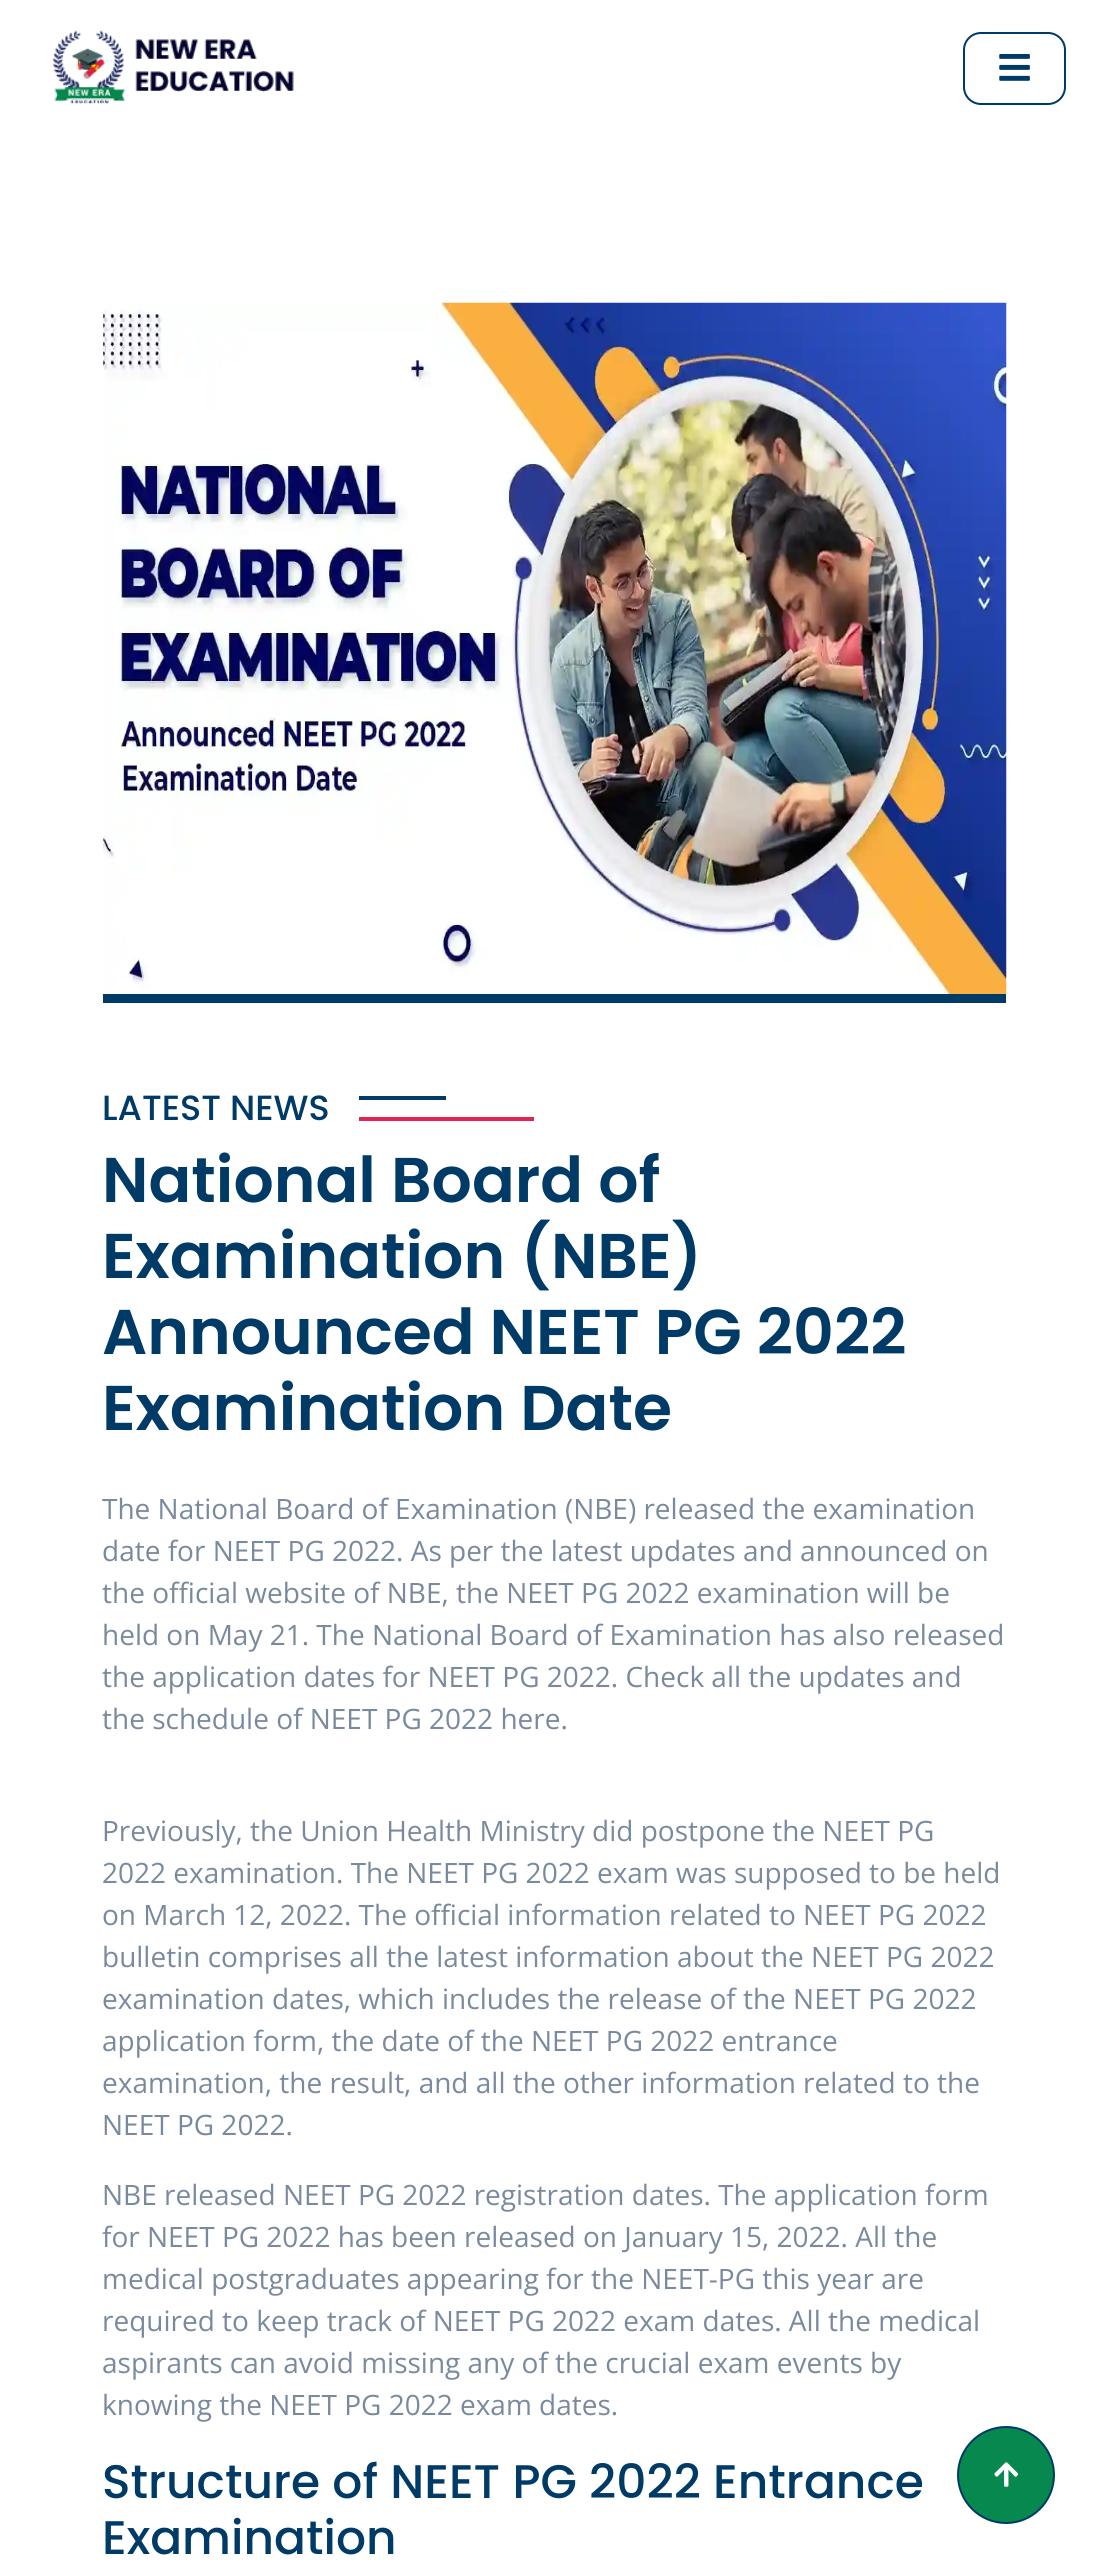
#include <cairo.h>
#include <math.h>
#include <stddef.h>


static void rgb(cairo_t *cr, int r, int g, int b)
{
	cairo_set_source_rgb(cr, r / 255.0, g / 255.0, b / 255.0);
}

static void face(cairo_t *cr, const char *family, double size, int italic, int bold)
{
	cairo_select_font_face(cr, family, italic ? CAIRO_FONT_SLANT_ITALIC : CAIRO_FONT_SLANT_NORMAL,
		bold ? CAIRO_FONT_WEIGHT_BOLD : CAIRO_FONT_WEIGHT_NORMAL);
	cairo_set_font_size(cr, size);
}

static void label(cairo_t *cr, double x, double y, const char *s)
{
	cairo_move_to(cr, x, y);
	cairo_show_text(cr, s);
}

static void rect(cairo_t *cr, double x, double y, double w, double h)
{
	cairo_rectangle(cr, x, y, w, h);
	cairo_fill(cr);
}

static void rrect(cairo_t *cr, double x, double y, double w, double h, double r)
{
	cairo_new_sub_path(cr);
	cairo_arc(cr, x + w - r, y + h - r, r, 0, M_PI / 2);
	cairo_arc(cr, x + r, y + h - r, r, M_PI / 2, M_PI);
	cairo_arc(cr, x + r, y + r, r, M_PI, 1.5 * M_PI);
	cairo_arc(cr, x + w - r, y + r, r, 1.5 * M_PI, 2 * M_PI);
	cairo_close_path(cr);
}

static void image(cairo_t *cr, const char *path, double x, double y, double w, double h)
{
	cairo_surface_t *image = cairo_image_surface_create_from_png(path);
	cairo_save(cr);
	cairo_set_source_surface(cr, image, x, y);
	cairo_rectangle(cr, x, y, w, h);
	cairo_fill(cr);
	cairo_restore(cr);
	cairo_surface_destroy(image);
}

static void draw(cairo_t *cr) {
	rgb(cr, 255, 255, 255);
	cairo_paint(cr);
	image(cr, "image0.png", 53, 30, 241, 74);
	rrect(cr, 964, 33, 101, 71, 17);
	rgb(cr, 0, 58, 102);
	cairo_stroke(cr);
	image(cr, "image1.png", 999, 54, 31, 27);
	image(cr, "image2.png", 103, 302, 904, 692);
	rect(cr, 103, 994, 903, 9);
	face(cr, "Poppins Medium", 35, 0, 0);
	label(cr, 102, 1120, "LATEST NEWS");
	rect(cr, 359, 1096, 87, 4);
	rgb(cr, 224, 36, 84);
	rect(cr, 359, 1117, 175, 4);
	face(cr, "Poppins SemiBold", 63.2, 0, 0);
	rgb(cr, 0, 58, 102);
	label(cr, 102, 1202, "National Board of");
	label(cr, 102, 1278, "Examination (NBE)");
	label(cr, 102, 1354, "Announced NEET PG 2022");
	label(cr, 102, 1430, "Examination Date");
	face(cr, "Open Sans", 28, 0, 0);
	rgb(cr, 122, 138, 158);
	label(cr, 102, 1519, "The National Board of Examination (NBE) released the examination");
	label(cr, 102, 1561, "date for NEET PG 2022. As per the latest updates and announced on");
	label(cr, 102, 1603, "the official website of NBE, the NEET PG 2022 examination will be");
	label(cr, 102, 1645, "held on May 21. The National Board of Examination has also released");
	label(cr, 102, 1687, "the application dates for NEET PG 2022. Check all the updates and");
	label(cr, 102, 1729, "the schedule of NEET PG 2022 here.");
	label(cr, 102, 1841, "Previously, the Union Health Ministry did postpone the NEET PG");
	label(cr, 102, 1883, "2022 examination. The NEET PG 2022 exam was supposed to be held");
	label(cr, 102, 1925, "on March 12, 2022. The official information related to NEET PG 2022");
	label(cr, 102, 1967, "bulletin comprises all the latest information about the NEET PG 2022");
	label(cr, 102, 2009, "examination dates, which includes the release of the NEET PG 2022");
	label(cr, 102, 2051, "application form, the date of the NEET PG 2022 entrance");
	label(cr, 102, 2093, "examination, the result, and all the other information related to the");
	label(cr, 102, 2135, "NEET PG 2022.");
	label(cr, 102, 2205, "NBE released NEET PG 2022 registration dates. The application form");
	label(cr, 102, 2247, "for NEET PG 2022 has been released on January 15, 2022. All the");
	label(cr, 102, 2289, "medical postgraduates appearing for the NEET-PG this year are");
	label(cr, 102, 2331, "required to keep track of NEET PG 2022 exam dates. All the medical");
	label(cr, 102, 2373, "aspirants can avoid missing any of the crucial exam events by");
	label(cr, 102, 2415, "knowing the NEET PG 2022 exam dates.");
	face(cr, "Poppins Medium", 47.1, 0, 0);
	rgb(cr, 0, 58, 102);
	label(cr, 102, 2498, "Structure of NEET PG 2022 Entrance");
	label(cr, 102, 2554, "Examination");
	rgb(cr, 7, 136, 78);
	cairo_new_path(cr);
	cairo_arc(cr, 1006, 2475, 48, 0, 2 * M_PI);
	cairo_fill_preserve(cr);
	rgb(cr, 0, 58, 102);
	cairo_stroke(cr);
	image(cr, "image3.png", 994, 2462, 25, 25);
}

int main(void) {
	cairo_surface_t *surface = cairo_image_surface_create(CAIRO_FORMAT_RGB24, 1107, 2575);
	cairo_t *cr = cairo_create(surface);
	cairo_font_options_t *options = cairo_font_options_create();
	cairo_font_options_set_hint_metrics(options, CAIRO_HINT_METRICS_OFF);
	cairo_font_options_set_hint_style(options, CAIRO_HINT_STYLE_NONE);
	cairo_set_font_options(cr, options);
	cairo_set_miter_limit(cr, 4);
	draw(cr);
	cairo_surface_write_to_png(surface, "render.png");
	cairo_font_options_destroy(options);
	cairo_destroy(cr);
	cairo_surface_destroy(surface);
	return 0;
}
